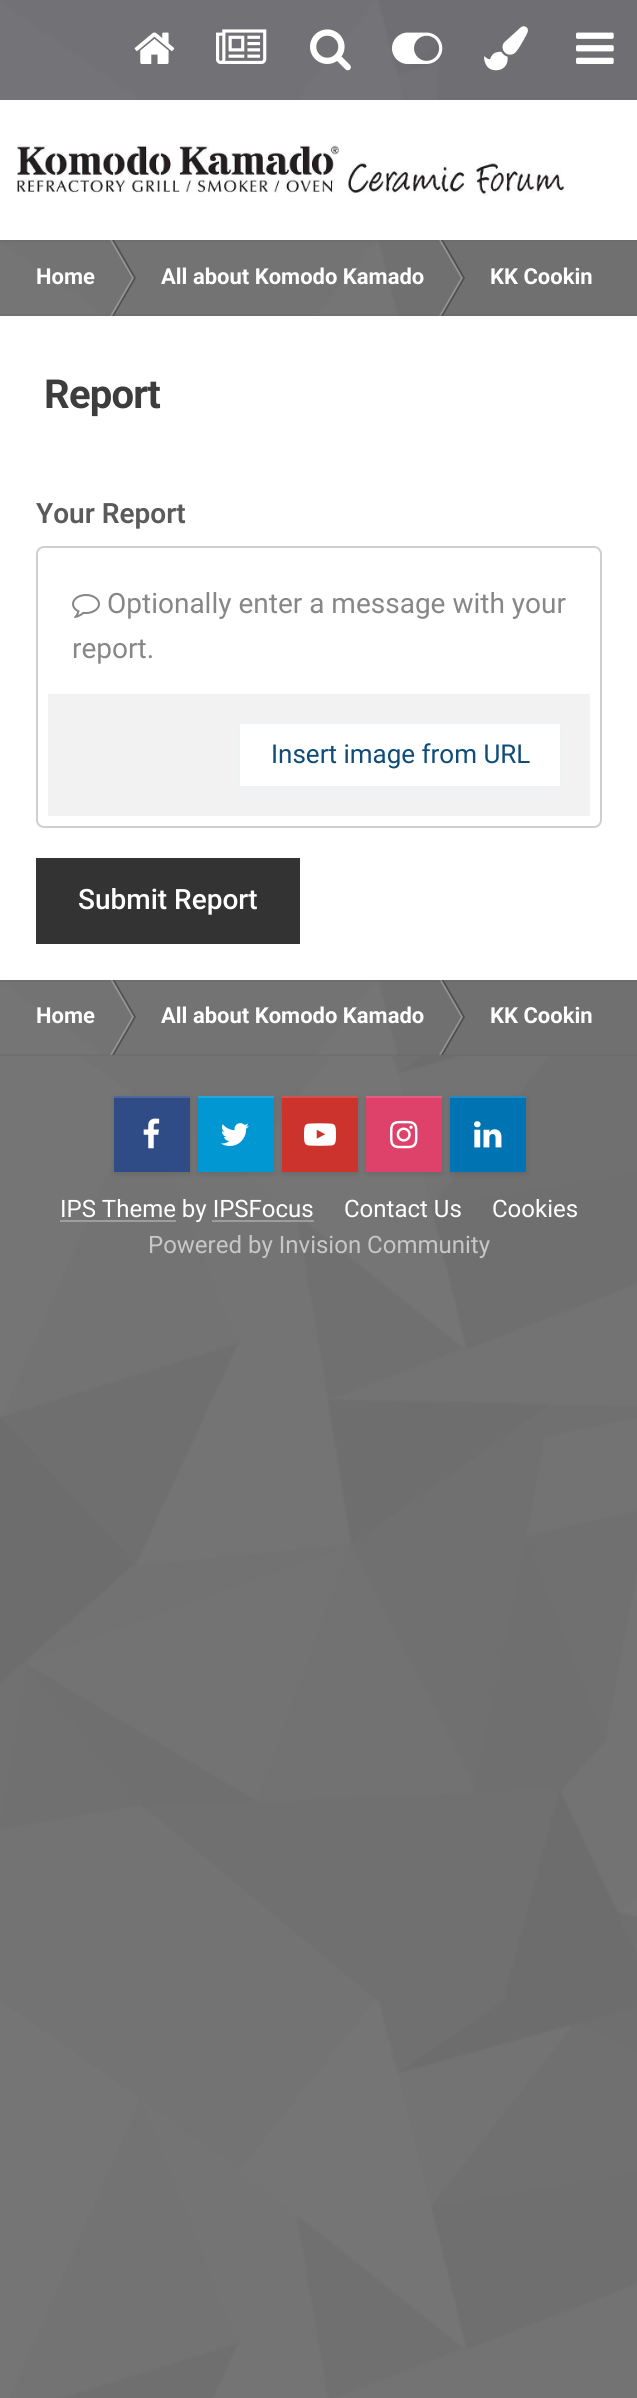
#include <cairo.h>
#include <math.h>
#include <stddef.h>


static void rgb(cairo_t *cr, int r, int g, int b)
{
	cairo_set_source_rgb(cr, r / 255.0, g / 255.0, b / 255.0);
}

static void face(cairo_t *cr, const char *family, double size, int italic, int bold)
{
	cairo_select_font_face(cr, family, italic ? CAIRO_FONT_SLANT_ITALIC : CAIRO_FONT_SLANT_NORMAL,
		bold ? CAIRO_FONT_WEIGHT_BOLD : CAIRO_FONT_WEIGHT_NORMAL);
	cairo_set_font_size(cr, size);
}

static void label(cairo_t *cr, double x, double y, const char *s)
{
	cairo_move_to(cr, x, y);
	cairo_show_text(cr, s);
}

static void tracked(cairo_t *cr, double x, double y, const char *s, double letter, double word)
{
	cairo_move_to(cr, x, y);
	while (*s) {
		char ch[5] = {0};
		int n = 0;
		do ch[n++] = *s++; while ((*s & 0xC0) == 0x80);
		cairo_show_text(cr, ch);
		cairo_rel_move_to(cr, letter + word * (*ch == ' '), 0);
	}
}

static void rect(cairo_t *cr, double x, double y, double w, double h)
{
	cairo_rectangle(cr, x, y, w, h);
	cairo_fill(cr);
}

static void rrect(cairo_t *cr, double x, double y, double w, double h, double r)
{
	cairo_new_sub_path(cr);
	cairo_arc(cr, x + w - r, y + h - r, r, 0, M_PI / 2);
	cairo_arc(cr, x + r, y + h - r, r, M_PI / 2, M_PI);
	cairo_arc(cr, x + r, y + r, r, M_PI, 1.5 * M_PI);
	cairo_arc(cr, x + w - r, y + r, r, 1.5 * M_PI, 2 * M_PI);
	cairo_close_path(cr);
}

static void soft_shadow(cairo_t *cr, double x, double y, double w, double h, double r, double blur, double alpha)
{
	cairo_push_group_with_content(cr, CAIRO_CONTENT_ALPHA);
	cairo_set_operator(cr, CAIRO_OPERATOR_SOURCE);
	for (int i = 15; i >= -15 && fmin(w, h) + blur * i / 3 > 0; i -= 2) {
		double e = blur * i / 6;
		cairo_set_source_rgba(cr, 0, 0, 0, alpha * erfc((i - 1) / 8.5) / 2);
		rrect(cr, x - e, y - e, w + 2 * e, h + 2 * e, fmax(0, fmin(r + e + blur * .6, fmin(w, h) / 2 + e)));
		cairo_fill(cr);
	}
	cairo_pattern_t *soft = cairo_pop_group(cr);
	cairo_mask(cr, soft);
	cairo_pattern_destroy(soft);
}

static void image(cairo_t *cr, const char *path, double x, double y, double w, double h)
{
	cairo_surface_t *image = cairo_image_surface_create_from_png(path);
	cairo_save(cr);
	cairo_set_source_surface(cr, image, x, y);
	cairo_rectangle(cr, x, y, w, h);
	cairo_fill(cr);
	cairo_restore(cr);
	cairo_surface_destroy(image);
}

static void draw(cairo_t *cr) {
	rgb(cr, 112, 112, 112);
	cairo_paint(cr);
	image(cr, "image0.png", 0, 1056, 637, 1342);
	rgb(cr, 255, 255, 255);
	rect(cr, 0, 316, 637, 664);
	rgb(cr, 116, 115, 120);
	rect(cr, 0, 0, 637, 100);
	image(cr, "image1.png", 0, 0, 438, 100);
	cairo_set_source_rgba(cr, 0, 0, 0, 0.04);
	rect(cr, 0, 0, 637, 100);
	image(cr, "image2.png", 134, 32, 41, 32);
	image(cr, "image3.png", 216, 29, 51, 35);
	image(cr, "image4.png", 310, 29, 41, 42);
	image(cr, "image5.png", 392, 32, 51, 32);
	image(cr, "image6.png", 484, 26, 44, 45);
	image(cr, "image7.png", 576, 32, 38, 32);
	rgb(cr, 255, 255, 255);
	rect(cr, 0, 100, 637, 140);
	image(cr, "image8.png", 17, 145, 548, 51);
	image(cr, "image9.png", 0, 240, 398, 76);
	rgb(cr, 150, 150, 150);
	cairo_new_path(cr);
	cairo_move_to(cr, 110, 240);
	cairo_line_to(cr, 112, 240);
	cairo_line_to(cr, 134, 278);
	cairo_line_to(cr, 132, 278);
	cairo_close_path(cr);
	cairo_fill(cr);
	cairo_set_source_rgba(cr, 0, 0, 0, 0.3);
	cairo_new_path(cr);
	cairo_move_to(cr, 112, 240);
	cairo_line_to(cr, 114, 240);
	cairo_line_to(cr, 136, 278);
	cairo_line_to(cr, 134, 278);
	cairo_close_path(cr);
	cairo_fill(cr);
	rgb(cr, 148, 148, 148);
	cairo_new_path(cr);
	cairo_move_to(cr, 439, 240);
	cairo_line_to(cr, 441, 240);
	cairo_line_to(cr, 463, 278);
	cairo_line_to(cr, 461, 278);
	cairo_close_path(cr);
	cairo_fill(cr);
	cairo_set_source_rgba(cr, 0, 0, 0, 0.3);
	cairo_new_path(cr);
	cairo_move_to(cr, 441, 240);
	cairo_line_to(cr, 443, 240);
	cairo_line_to(cr, 465, 278);
	cairo_line_to(cr, 463, 278);
	cairo_close_path(cr);
	cairo_fill(cr);
	cairo_set_source_rgba(cr, 0.353, 0.353, 0.353, 0.2);
	rect(cr, 0, 240, 637, 2);
	rgb(cr, 150, 150, 150);
	cairo_new_path(cr);
	cairo_move_to(cr, 110, 316);
	cairo_line_to(cr, 112, 316);
	cairo_line_to(cr, 134, 278);
	cairo_line_to(cr, 132, 278);
	cairo_close_path(cr);
	cairo_fill(cr);
	cairo_set_source_rgba(cr, 0, 0, 0, 0.3);
	cairo_new_path(cr);
	cairo_move_to(cr, 112, 316);
	cairo_line_to(cr, 114, 316);
	cairo_line_to(cr, 136, 278);
	cairo_line_to(cr, 134, 278);
	cairo_close_path(cr);
	cairo_fill(cr);
	rgb(cr, 148, 148, 148);
	cairo_new_path(cr);
	cairo_move_to(cr, 439, 316);
	cairo_line_to(cr, 441, 316);
	cairo_line_to(cr, 463, 278);
	cairo_line_to(cr, 461, 278);
	cairo_close_path(cr);
	cairo_fill(cr);
	cairo_set_source_rgba(cr, 0, 0, 0, 0.3);
	cairo_new_path(cr);
	cairo_move_to(cr, 441, 316);
	cairo_line_to(cr, 443, 316);
	cairo_line_to(cr, 465, 278);
	cairo_line_to(cr, 463, 278);
	cairo_close_path(cr);
	cairo_fill(cr);
	cairo_set_source_rgba(cr, 0.353, 0.353, 0.353, 0.2);
	rect(cr, 0, 314, 637, 2);
	face(cr, "Roboto", 22, 0, 1);
	rgb(cr, 255, 255, 255);
	label(cr, 36, 284, "Home");
	label(cr, 161, 284, "All about Komodo Kamado");
	label(cr, 490, 284, "KK Cookin");
	face(cr, "Roboto", 40, 0, 1);
	rgb(cr, 61, 61, 61);
	tracked(cr, 44, 408, "Report", -0.75, 0);
	face(cr, "Roboto SemiBold", 28, 0, 0);
	rgb(cr, 90, 90, 90);
	label(cr, 36, 523, "Your Report");
	rrect(cr, 37, 547, 564, 280, 7);
	rgb(cr, 207, 207, 207);
	cairo_stroke(cr);
	image(cr, "image10.png", 72, 594, 28, 24);
	face(cr, "Roboto", 28, 0, 0);
	rgb(cr, 135, 135, 135);
	label(cr, 107, 613, "Optionally enter a message with your");
	label(cr, 72, 658, "report.");
	rgb(cr, 242, 242, 242);
	rect(cr, 48, 694, 542, 122);
	rgb(cr, 255, 255, 255);
	cairo_rectangle(cr, 239, 723, 322, 64);
	cairo_fill_preserve(cr);
	rgb(cr, 237, 242, 245);
	cairo_stroke(cr);
	face(cr, "Roboto", 26, 0, 0);
	rgb(cr, 14, 76, 121);
	label(cr, 271, 763, "Insert image from URL");
	rgb(cr, 51, 51, 51);
	rect(cr, 36, 858, 264, 86);
	face(cr, "Roboto Medium", 28, 0, 0);
	rgb(cr, 255, 255, 255);
	label(cr, 78, 909, "Submit Report");
	image(cr, "image9.png", 0, 980, 398, 76);
	cairo_save(cr);
	cairo_rectangle(cr, 0, 980, 594, 76);
	cairo_clip(cr);
	rgb(cr, 150, 150, 150);
	cairo_new_path(cr);
	cairo_move_to(cr, 110, 979);
	cairo_line_to(cr, 112, 979);
	cairo_line_to(cr, 134, 1017);
	cairo_line_to(cr, 132, 1017);
	cairo_close_path(cr);
	cairo_fill(cr);
	cairo_set_source_rgba(cr, 0, 0, 0, 0.3);
	cairo_new_path(cr);
	cairo_move_to(cr, 112, 979);
	cairo_line_to(cr, 114, 979);
	cairo_line_to(cr, 136, 1017);
	cairo_line_to(cr, 134, 1017);
	cairo_close_path(cr);
	cairo_fill(cr);
	rgb(cr, 148, 148, 148);
	cairo_new_path(cr);
	cairo_move_to(cr, 439, 979);
	cairo_line_to(cr, 441, 979);
	cairo_line_to(cr, 463, 1017);
	cairo_line_to(cr, 461, 1017);
	cairo_close_path(cr);
	cairo_fill(cr);
	cairo_set_source_rgba(cr, 0, 0, 0, 0.3);
	cairo_new_path(cr);
	cairo_move_to(cr, 441, 979);
	cairo_line_to(cr, 443, 979);
	cairo_line_to(cr, 465, 1017);
	cairo_line_to(cr, 463, 1017);
	cairo_close_path(cr);
	cairo_fill(cr);
	cairo_restore(cr);
	cairo_set_source_rgba(cr, 0.353, 0.353, 0.353, 0.2);
	rect(cr, 0, 980, 637, 2);
	rgb(cr, 150, 150, 150);
	cairo_new_path(cr);
	cairo_move_to(cr, 110, 1055);
	cairo_line_to(cr, 112, 1055);
	cairo_line_to(cr, 134, 1017);
	cairo_line_to(cr, 132, 1017);
	cairo_close_path(cr);
	cairo_fill(cr);
	cairo_set_source_rgba(cr, 0, 0, 0, 0.3);
	cairo_new_path(cr);
	cairo_move_to(cr, 112, 1055);
	cairo_line_to(cr, 114, 1055);
	cairo_line_to(cr, 136, 1017);
	cairo_line_to(cr, 134, 1017);
	cairo_close_path(cr);
	cairo_fill(cr);
	rgb(cr, 148, 148, 148);
	cairo_new_path(cr);
	cairo_move_to(cr, 439, 1055);
	cairo_line_to(cr, 441, 1055);
	cairo_line_to(cr, 463, 1017);
	cairo_line_to(cr, 461, 1017);
	cairo_close_path(cr);
	cairo_fill(cr);
	cairo_set_source_rgba(cr, 0, 0, 0, 0.3);
	cairo_new_path(cr);
	cairo_move_to(cr, 441, 1055);
	cairo_line_to(cr, 443, 1055);
	cairo_line_to(cr, 465, 1017);
	cairo_line_to(cr, 463, 1017);
	cairo_close_path(cr);
	cairo_fill(cr);
	cairo_set_source_rgba(cr, 0.353, 0.353, 0.353, 0.2);
	rect(cr, 0, 1054, 637, 2);
	face(cr, "Roboto", 22, 0, 1);
	rgb(cr, 255, 255, 255);
	label(cr, 36, 1023, "Home");
	label(cr, 161, 1023, "All about Komodo Kamado");
	label(cr, 490, 1023, "KK Cookin");
	rgb(cr, 0, 0, 0);
	soft_shadow(cr, 114, 1098, 76, 76, 0, 3, 0.1);
	rgb(cr, 48, 76, 135);
	rect(cr, 114, 1098, 76, 74);
	rgb(cr, 79, 103, 153);
	rect(cr, 114, 1096, 76, 2);
	image(cr, "image11.png", 143, 1118, 17, 31);
	rgb(cr, 0, 0, 0);
	soft_shadow(cr, 198, 1098, 76, 76, 0, 3, 0.1);
	rgb(cr, 0, 151, 211);
	rect(cr, 198, 1098, 76, 74);
	rgb(cr, 38, 167, 218);
	rect(cr, 198, 1096, 76, 2);
	image(cr, "image12.png", 221, 1123, 28, 23);
	rgb(cr, 0, 0, 0);
	soft_shadow(cr, 282, 1098, 76, 76, 0, 3, 0.1);
	rgb(cr, 204, 51, 45);
	rect(cr, 282, 1098, 76, 74);
	rgb(cr, 212, 82, 77);
	rect(cr, 282, 1096, 76, 2);
	image(cr, "image13.png", 304, 1123, 32, 23);
	rgb(cr, 0, 0, 0);
	soft_shadow(cr, 366, 1098, 76, 76, 0, 3, 0.1);
	rgb(cr, 222, 65, 106);
	rect(cr, 366, 1098, 76, 74);
	rgb(cr, 227, 94, 128);
	rect(cr, 366, 1096, 76, 2);
	image(cr, "image14.png", 390, 1120, 28, 29);
	rgb(cr, 0, 0, 0);
	soft_shadow(cr, 450, 1098, 76, 76, 0, 3, 0.1);
	rgb(cr, 0, 115, 178);
	rect(cr, 450, 1098, 76, 74);
	rgb(cr, 38, 136, 190);
	rect(cr, 450, 1096, 76, 2);
	image(cr, "image15.png", 474, 1121, 28, 27);
	rgb(cr, 158, 158, 158);
	rect(cr, 60, 1220, 116, 2);
	face(cr, "Roboto", 24, 0, 0);
	rgb(cr, 255, 255, 255);
	label(cr, 60, 1217, "IPS Theme by IPSFocus");
	cairo_set_source_rgba(cr, 1, 1, 1, 0.3);
	rect(cr, 212, 1220, 102, 2);
	rgb(cr, 255, 255, 255);
	label(cr, 344, 1217, "Contact Us");
	label(cr, 492, 1217, "Cookies");
	rgb(cr, 199, 199, 199);
	label(cr, 148, 1253, "Powered by Invision Community");
}

int main(void) {
	cairo_surface_t *surface = cairo_image_surface_create(CAIRO_FORMAT_RGB24, 637, 2398);
	cairo_t *cr = cairo_create(surface);
	cairo_font_options_t *options = cairo_font_options_create();
	cairo_font_options_set_hint_metrics(options, CAIRO_HINT_METRICS_OFF);
	cairo_font_options_set_hint_style(options, CAIRO_HINT_STYLE_NONE);
	cairo_set_font_options(cr, options);
	cairo_set_miter_limit(cr, 4);
	draw(cr);
	cairo_surface_write_to_png(surface, "render.png");
	cairo_font_options_destroy(options);
	cairo_destroy(cr);
	cairo_surface_destroy(surface);
	return 0;
}
